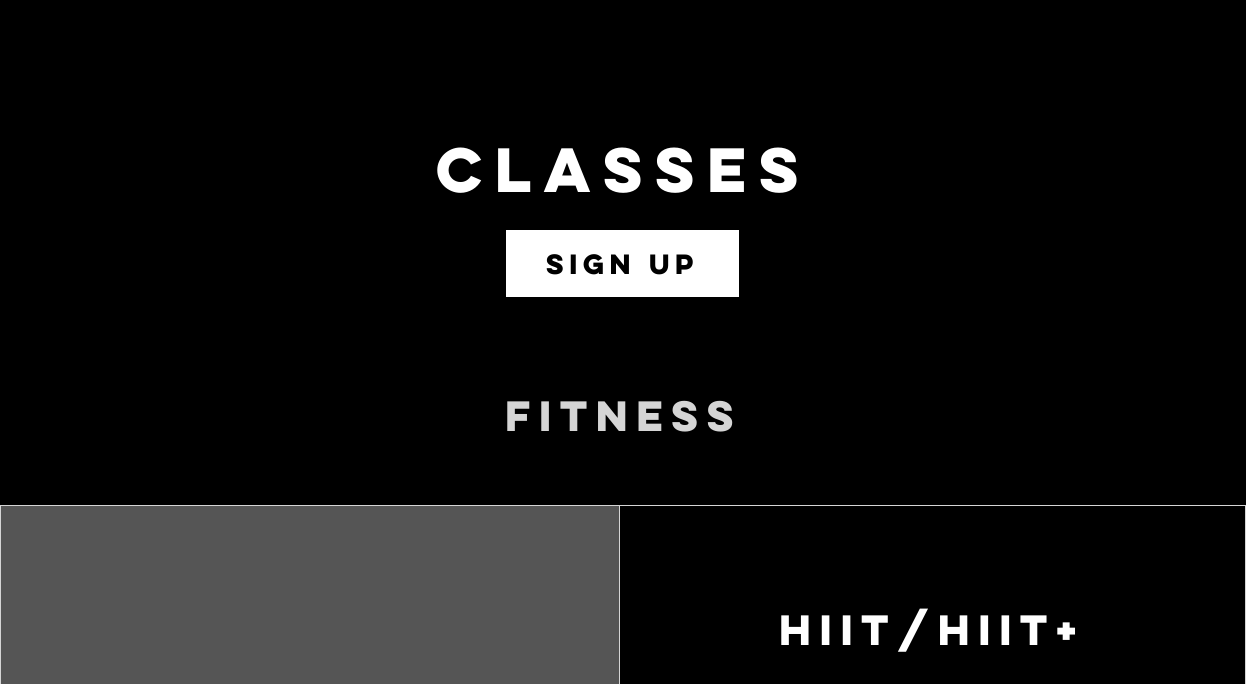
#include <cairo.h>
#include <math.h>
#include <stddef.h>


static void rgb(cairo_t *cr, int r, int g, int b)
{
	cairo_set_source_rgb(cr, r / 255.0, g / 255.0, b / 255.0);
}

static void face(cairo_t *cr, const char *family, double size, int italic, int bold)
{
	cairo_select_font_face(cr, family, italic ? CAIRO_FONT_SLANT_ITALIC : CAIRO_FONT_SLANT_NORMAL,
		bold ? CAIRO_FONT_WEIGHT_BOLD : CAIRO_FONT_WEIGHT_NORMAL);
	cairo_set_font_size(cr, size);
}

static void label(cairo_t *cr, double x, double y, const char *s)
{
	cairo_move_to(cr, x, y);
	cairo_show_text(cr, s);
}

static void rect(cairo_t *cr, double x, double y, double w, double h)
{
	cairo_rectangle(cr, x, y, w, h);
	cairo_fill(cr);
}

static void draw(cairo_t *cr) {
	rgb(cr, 0, 0, 0);
	cairo_paint(cr);
	face(cr, "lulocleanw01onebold", 56, 0, 1);
	rgb(cr, 255, 255, 255);
	label(cr, 436, 192, "CLASSES");
	rect(cr, 506, 230, 233, 67);
	face(cr, "lulocleanw01onebold", 25, 0, 1);
	rgb(cr, 0, 0, 0);
	label(cr, 546, 274, "sign up");
	face(cr, "lulocleanw01onebold", 38, 0, 1);
	rgb(cr, 213, 213, 213);
	label(cr, 505, 431, "fitness");
	rect(cr, 0, 505, 1246, 179);
	rgb(cr, 85, 85, 85);
	rect(cr, 1, 506, 618, 178);
	rgb(cr, 0, 0, 0);
	rect(cr, 620, 506, 625, 178);
	rgb(cr, 255, 255, 255);
	label(cr, 779, 645, "HiiT/HIIT+");
}

int main(void) {
	cairo_surface_t *surface = cairo_image_surface_create(CAIRO_FORMAT_RGB24, 1246, 684);
	cairo_t *cr = cairo_create(surface);
	cairo_font_options_t *options = cairo_font_options_create();
	cairo_font_options_set_hint_metrics(options, CAIRO_HINT_METRICS_OFF);
	cairo_font_options_set_hint_style(options, CAIRO_HINT_STYLE_NONE);
	cairo_set_font_options(cr, options);
	cairo_set_miter_limit(cr, 4);
	draw(cr);
	cairo_surface_write_to_png(surface, "render.png");
	cairo_font_options_destroy(options);
	cairo_destroy(cr);
	cairo_surface_destroy(surface);
	return 0;
}
